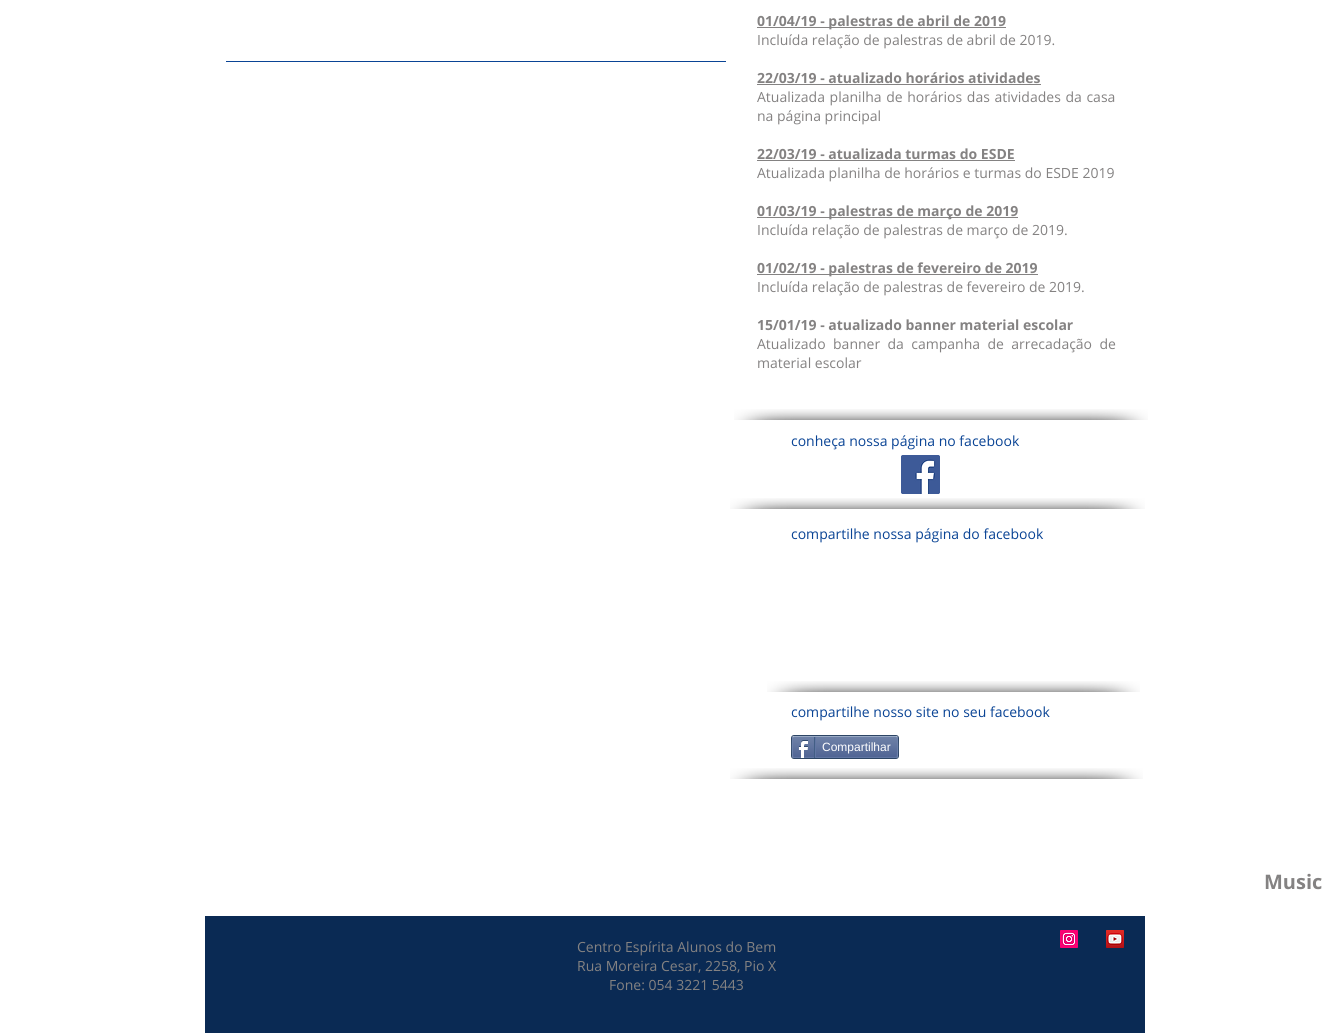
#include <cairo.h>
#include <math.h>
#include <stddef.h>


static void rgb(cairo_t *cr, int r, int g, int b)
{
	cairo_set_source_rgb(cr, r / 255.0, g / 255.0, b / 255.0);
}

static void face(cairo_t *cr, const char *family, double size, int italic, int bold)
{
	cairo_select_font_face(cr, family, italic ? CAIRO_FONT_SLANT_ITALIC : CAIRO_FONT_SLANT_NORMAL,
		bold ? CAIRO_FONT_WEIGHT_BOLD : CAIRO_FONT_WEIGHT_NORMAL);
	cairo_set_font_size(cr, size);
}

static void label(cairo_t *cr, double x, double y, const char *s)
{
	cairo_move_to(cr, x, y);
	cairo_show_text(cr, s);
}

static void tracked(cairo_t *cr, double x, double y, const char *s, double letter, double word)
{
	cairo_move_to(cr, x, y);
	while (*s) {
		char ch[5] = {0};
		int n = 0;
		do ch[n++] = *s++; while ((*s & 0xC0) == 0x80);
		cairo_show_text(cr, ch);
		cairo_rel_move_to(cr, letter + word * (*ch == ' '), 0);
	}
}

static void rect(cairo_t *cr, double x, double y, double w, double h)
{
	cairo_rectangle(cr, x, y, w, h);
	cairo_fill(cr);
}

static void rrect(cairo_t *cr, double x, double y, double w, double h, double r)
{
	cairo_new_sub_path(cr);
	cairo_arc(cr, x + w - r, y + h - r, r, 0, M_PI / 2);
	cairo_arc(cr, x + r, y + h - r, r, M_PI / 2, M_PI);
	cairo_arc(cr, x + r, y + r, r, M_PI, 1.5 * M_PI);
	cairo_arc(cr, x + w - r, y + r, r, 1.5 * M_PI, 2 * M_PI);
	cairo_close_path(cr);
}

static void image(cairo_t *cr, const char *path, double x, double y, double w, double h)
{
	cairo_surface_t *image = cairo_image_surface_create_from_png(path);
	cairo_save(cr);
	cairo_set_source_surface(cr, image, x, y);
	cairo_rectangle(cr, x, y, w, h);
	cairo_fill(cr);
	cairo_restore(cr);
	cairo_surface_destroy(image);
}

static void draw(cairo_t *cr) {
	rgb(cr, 255, 255, 255);
	cairo_paint(cr);
	rgb(cr, 10, 68, 149);
	rect(cr, 226, 61, 500, 1);
	rgb(cr, 132, 130, 130);
	rect(cr, 757, 27, 249, 1);
	face(cr, "Open Sans", 14, 0, 1);
	label(cr, 757, 26, "01/04/19 - palestras de abril de 2019");
	face(cr, "Open Sans", 14, 0, 0);
	label(cr, 757, 45, "Incluída relação de palestras de abril de 2019.");
	face(cr, "Open Sans", 14, 0, 1);
	label(cr, 757, 83, "22/03/19 - atualizado horários atividades");
	rect(cr, 757, 84, 284, 1);
	face(cr, "Open Sans", 14, 0, 0);
	tracked(cr, 757, 102, "Atualizada planilha de horários das atividades da casa", 0, 1);
	label(cr, 757, 121, "na página principal");
	face(cr, "Open Sans", 14, 0, 1);
	label(cr, 757, 159, "22/03/19 - atualizada turmas do ESDE");
	rect(cr, 757, 160, 258, 1);
	face(cr, "Open Sans", 14, 0, 0);
	label(cr, 757, 178, "Atualizada planilha de horários e turmas do ESDE 2019");
	rect(cr, 757, 217, 261, 1);
	face(cr, "Open Sans", 14, 0, 1);
	label(cr, 757, 216, "01/03/19 - palestras de março de 2019");
	face(cr, "Open Sans", 14, 0, 0);
	label(cr, 757, 235, "Incluída relação de palestras de março de 2019.");
	rect(cr, 757, 274, 281, 1);
	face(cr, "Open Sans", 14, 0, 1);
	label(cr, 757, 273, "01/02/19 - palestras de fevereiro de 2019");
	face(cr, "Open Sans", 14, 0, 0);
	label(cr, 757, 292, "Incluída relação de palestras de fevereiro de 2019.");
	face(cr, "Open Sans", 14, 0, 1);
	label(cr, 757, 330, "15/01/19 - atualizado banner material escolar");
	face(cr, "Open Sans", 14, 0, 0);
	tracked(cr, 757, 349, "Atualizado banner da campanha de arrecadação de", 0, 3.75);
	label(cr, 757, 368, "material escolar");
	image(cr, "image0.png", 734, 409, 97, 11);
	image(cr, "image1.png", 831, 409, 220, 11);
	image(cr, "image2.png", 1051, 409, 97, 11);
	rgb(cr, 10, 68, 149);
	label(cr, 791, 446, "conheça nossa página no facebook");
	image(cr, "image3.png", 901, 455, 39, 39);
	image(cr, "image0.png", 730, 498, 97, 11);
	image(cr, "image4.png", 827, 498, 221, 11);
	image(cr, "image2.png", 1048, 498, 97, 11);
	label(cr, 791, 539, "compartilhe nossa página do facebook");
	image(cr, "image0.png", 767, 681, 97, 11);
	image(cr, "image5.png", 864, 681, 179, 11);
	image(cr, "image2.png", 1043, 681, 97, 11);
	label(cr, 791, 717, "compartilhe nosso site no seu facebook");
	rrect(cr, 791.5, 735.5, 107, 23, 2.5);
	rgb(cr, 45, 69, 101);
	cairo_set_line_width(cr, 1);
	cairo_stroke(cr);
	image(cr, "image6.png", 792, 737, 106, 21);
	cairo_new_path(cr);
	cairo_move_to(cr, 793, 737);
	cairo_line_to(cr, 794, 736.5);
	cairo_line_to(cr, 896, 736.5);
	cairo_line_to(cr, 897, 737);
	rgb(cr, 154, 171, 198);
	cairo_stroke(cr);
	cairo_new_path(cr);
	cairo_move_to(cr, 897, 737);
	cairo_curve_to(cr, 898, 737.5, 898, 756.5, 897, 757);
	rgb(cr, 111, 131, 173);
	cairo_stroke(cr);
	cairo_new_path(cr);
	cairo_move_to(cr, 897, 757);
	cairo_line_to(cr, 896, 757.5);
	cairo_line_to(cr, 794, 757.5);
	cairo_line_to(cr, 793, 757);
	rgb(cr, 97, 118, 163);
	cairo_stroke(cr);
	cairo_new_path(cr);
	cairo_move_to(cr, 793, 757);
	cairo_curve_to(cr, 792, 756.5, 792, 737.5, 793, 737);
	rgb(cr, 111, 131, 173);
	cairo_stroke(cr);
	image(cr, "image7.png", 798, 740, 10, 18);
	rgb(cr, 66, 94, 133);
	rect(cr, 814, 737, 1, 21);
	face(cr, "Liberation Sans", 12, 0, 0);
	rgb(cr, 255, 255, 255);
	label(cr, 822, 751, "Compartilhar");
	rgb(cr, 97, 118, 163);
	rect(cr, 815, 737, 1, 20);
	image(cr, "image0.png", 730, 768, 97, 11);
	image(cr, "image8.png", 827, 768, 219, 11);
	image(cr, "image2.png", 1046, 768, 97, 11);
	face(cr, "Open Sans", 20, 0, 1);
	rgb(cr, 132, 130, 130);
	label(cr, 1264, 889, "Music");
	rgb(cr, 10, 42, 84);
	rect(cr, 205, 916, 940, 117);
	image(cr, "image9.png", 1060, 930, 18, 18);
	image(cr, "image10.png", 1106, 930, 18, 18);
	face(cr, "Open Sans", 14, 0, 0);
	rgb(cr, 132, 130, 130);
	label(cr, 577, 952, "Centro Espírita Alunos do Bem");
	label(cr, 577, 971, "Rua Moreira Cesar, 2258, Pio X");
	label(cr, 609, 990, "Fone: 054 3221 5443");
}

int main(void) {
	cairo_surface_t *surface = cairo_image_surface_create(CAIRO_FORMAT_RGB24, 1342, 1033);
	cairo_t *cr = cairo_create(surface);
	cairo_font_options_t *options = cairo_font_options_create();
	cairo_font_options_set_hint_metrics(options, CAIRO_HINT_METRICS_OFF);
	cairo_font_options_set_hint_style(options, CAIRO_HINT_STYLE_NONE);
	cairo_set_font_options(cr, options);
	cairo_set_miter_limit(cr, 4);
	draw(cr);
	cairo_surface_write_to_png(surface, "render.png");
	cairo_font_options_destroy(options);
	cairo_destroy(cr);
	cairo_surface_destroy(surface);
	return 0;
}
